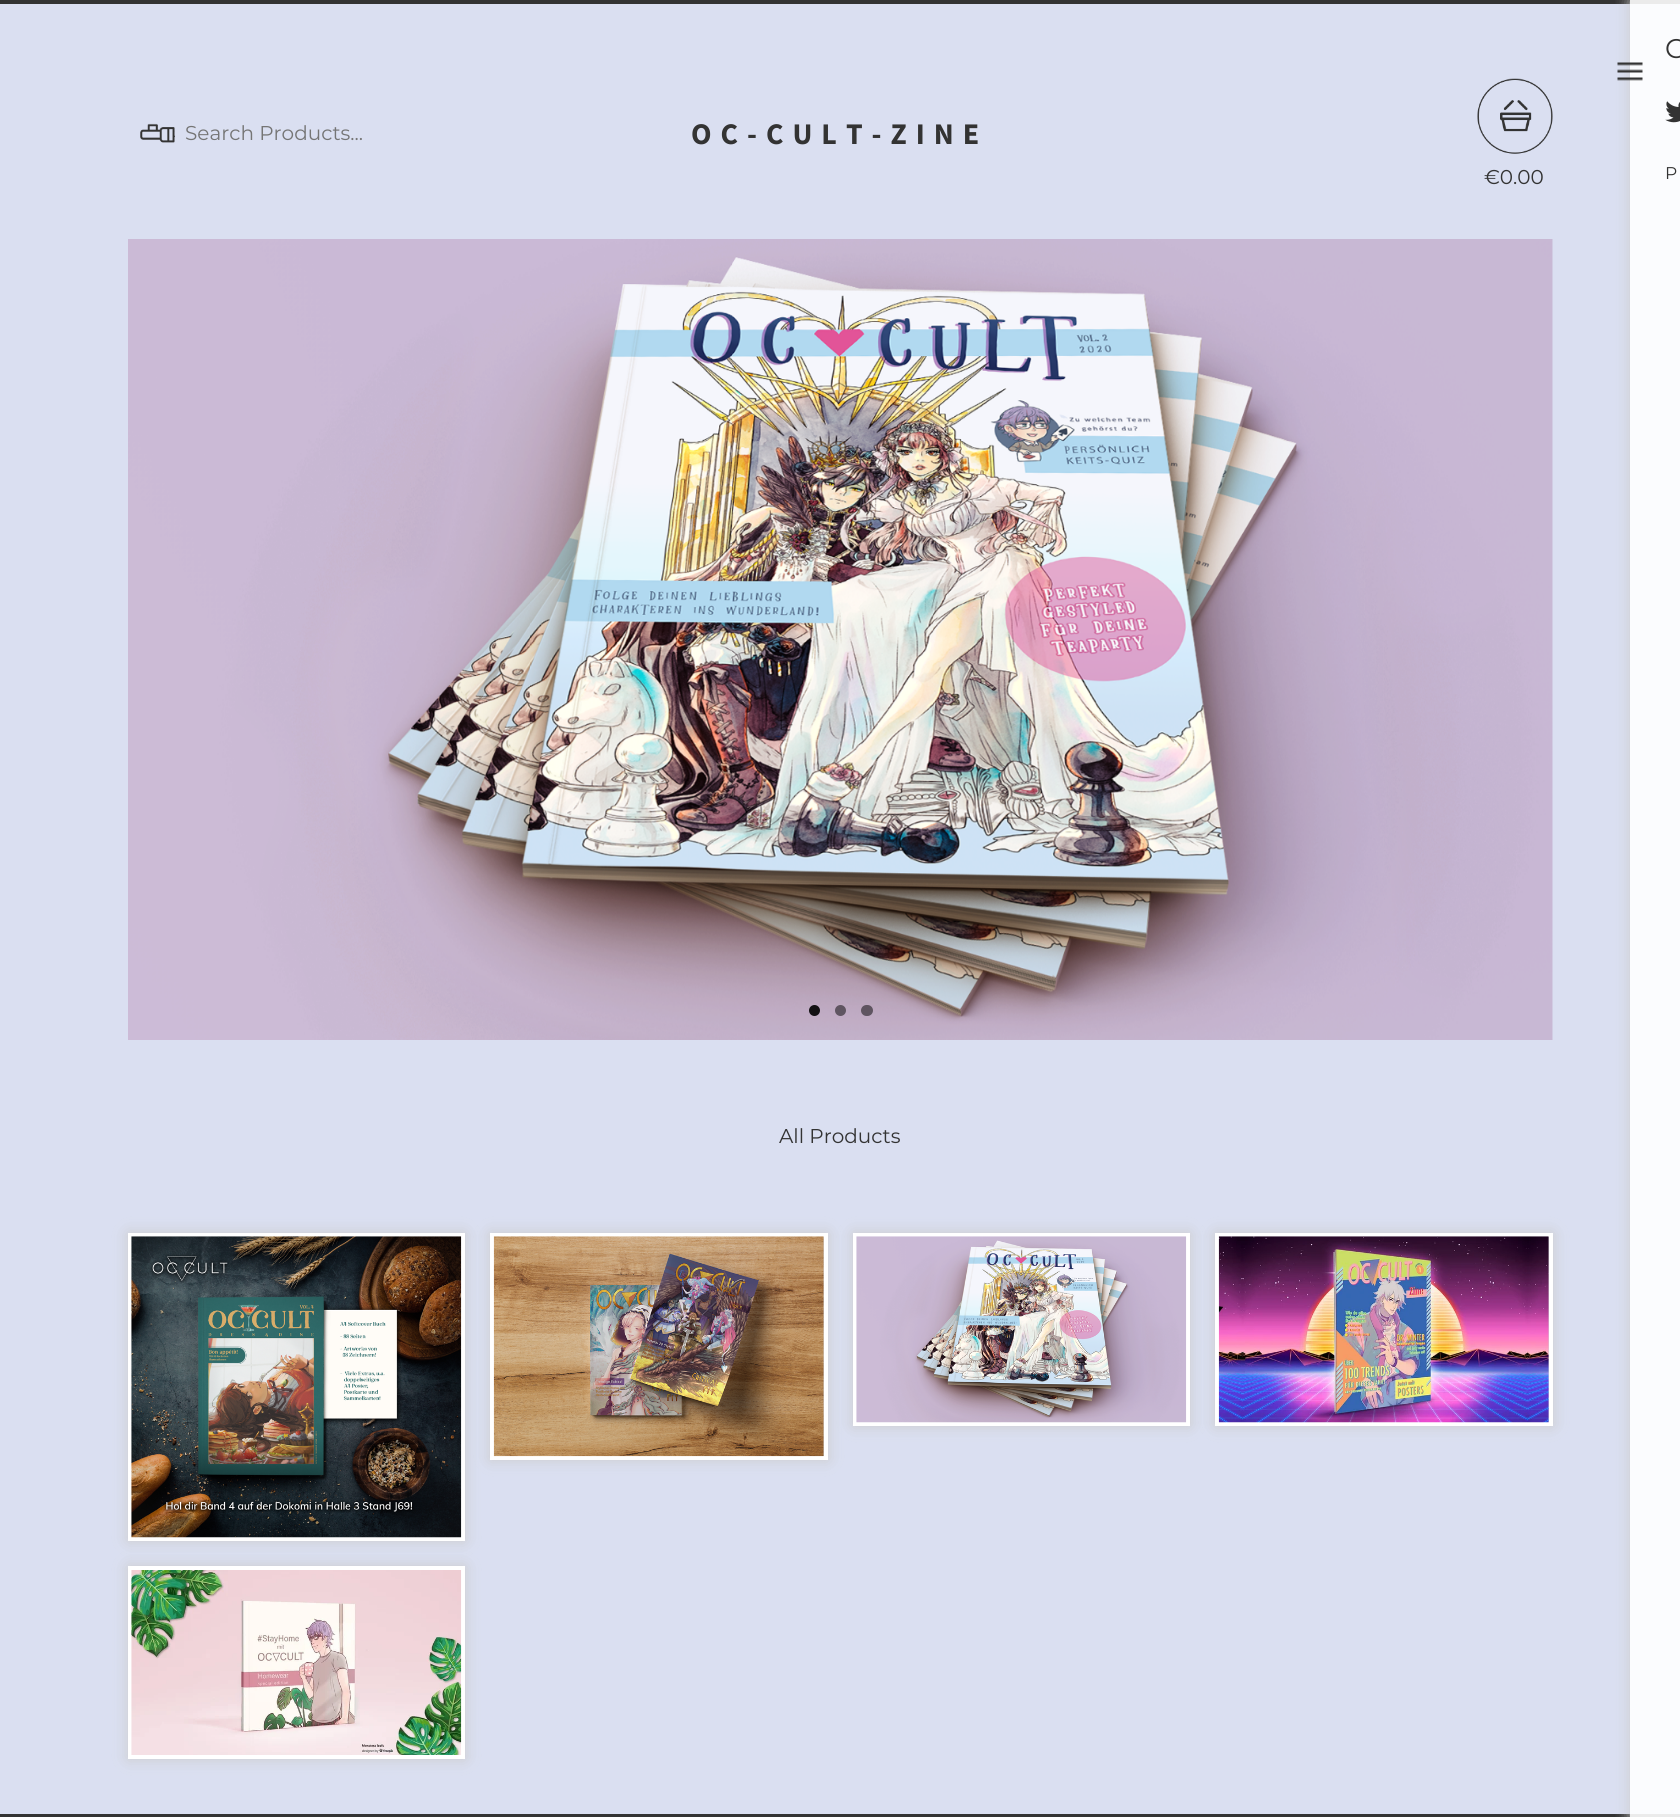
#include <cairo.h>
#include <math.h>
#include <stddef.h>


static void rgb(cairo_t *cr, int r, int g, int b)
{
	cairo_set_source_rgb(cr, r / 255.0, g / 255.0, b / 255.0);
}

static void face(cairo_t *cr, const char *family, double size, int italic, int bold)
{
	cairo_select_font_face(cr, family, italic ? CAIRO_FONT_SLANT_ITALIC : CAIRO_FONT_SLANT_NORMAL,
		bold ? CAIRO_FONT_WEIGHT_BOLD : CAIRO_FONT_WEIGHT_NORMAL);
	cairo_set_font_size(cr, size);
}

static void label(cairo_t *cr, double x, double y, const char *s)
{
	cairo_move_to(cr, x, y);
	cairo_show_text(cr, s);
}

static void tracked(cairo_t *cr, double x, double y, const char *s, double letter, double word)
{
	cairo_move_to(cr, x, y);
	while (*s) {
		char ch[5] = {0};
		int n = 0;
		do ch[n++] = *s++; while ((*s & 0xC0) == 0x80);
		cairo_show_text(cr, ch);
		cairo_rel_move_to(cr, letter + word * (*ch == ' '), 0);
	}
}

static void rect(cairo_t *cr, double x, double y, double w, double h)
{
	cairo_rectangle(cr, x, y, w, h);
	cairo_fill(cr);
}

static void rrect(cairo_t *cr, double x, double y, double w, double h, double r)
{
	cairo_new_sub_path(cr);
	cairo_arc(cr, x + w - r, y + h - r, r, 0, M_PI / 2);
	cairo_arc(cr, x + r, y + h - r, r, M_PI / 2, M_PI);
	cairo_arc(cr, x + r, y + r, r, M_PI, 1.5 * M_PI);
	cairo_arc(cr, x + w - r, y + r, r, 1.5 * M_PI, 2 * M_PI);
	cairo_close_path(cr);
}

static void soft_shadow(cairo_t *cr, double x, double y, double w, double h, double r, double blur, double alpha)
{
	cairo_push_group_with_content(cr, CAIRO_CONTENT_ALPHA);
	cairo_set_operator(cr, CAIRO_OPERATOR_SOURCE);
	for (int i = 15; i >= -15 && fmin(w, h) + blur * i / 3 > 0; i -= 2) {
		double e = blur * i / 6;
		cairo_set_source_rgba(cr, 0, 0, 0, alpha * erfc((i - 1) / 8.5) / 2);
		rrect(cr, x - e, y - e, w + 2 * e, h + 2 * e, fmax(0, fmin(r + e + blur * .6, fmin(w, h) / 2 + e)));
		cairo_fill(cr);
	}
	cairo_pattern_t *soft = cairo_pop_group(cr);
	cairo_mask(cr, soft);
	cairo_pattern_destroy(soft);
}

static void image(cairo_t *cr, const char *path, double x, double y, double w, double h)
{
	cairo_surface_t *image = cairo_image_surface_create_from_png(path);
	cairo_save(cr);
	cairo_set_source_surface(cr, image, x, y);
	cairo_rectangle(cr, x, y, w, h);
	cairo_fill(cr);
	cairo_restore(cr);
	cairo_surface_destroy(image);
}

static void draw(cairo_t *cr) {
	rgb(cr, 218, 223, 241);
	cairo_paint(cr);
	rgb(cr, 251, 252, 254);
	rect(cr, 1630, 4, 50, 1810);
	rgb(cr, 51, 51, 51);
	rect(cr, 0, 0, 1630, 4);
	rgb(cr, 235, 235, 235);
	rect(cr, 1630, 0, 50, 4);
	image(cr, "image0.png", 140, 123, 35, 20);
	face(cr, "Montserrat", 20, 0, 0);
	rgb(cr, 117, 117, 117);
	label(cr, 185, 140, "Search Products...");
	face(cr, "Source Sans Pro", 30, 0, 1);
	rgb(cr, 51, 51, 51);
	tracked(cr, 691, 144, "OC-CULT-ZINE", 9, 0);
	image(cr, "image1.png", 1477, 78, 76, 76);
	face(cr, "Montserrat", 20, 0, 0);
	label(cr, 1484, 184, "€0.00");
	rect(cr, 0, 1814, 1630, 3);
	rgb(cr, 235, 235, 235);
	rect(cr, 1630, 1814, 50, 3);
	cairo_save(cr);
	cairo_rectangle(cr, 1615, 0, 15, 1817);
	cairo_clip(cr);
	rgb(cr, 204, 204, 204);
	soft_shadow(cr, 1630, 0, 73, 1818, 0, 7.5, 1);
	cairo_restore(cr);
	image(cr, "image2.png", 1617, 62, 26, 19);
	face(cr, "Montserrat", 27, 0, 0);
	rgb(cr, 51, 51, 51);
	tracked(cr, 1665, 58, "C", 1, 0);
	image(cr, "image3.png", 1665, 101, 15, 22);
	face(cr, "Montserrat", 17, 0, 0);
	tracked(cr, 1665, 179, "P", 1, 0);
	image(cr, "image4.png", 128, 239, 1425, 801);
	cairo_set_source_rgba(cr, 0, 0, 0, 0.9);
	cairo_arc(cr, 814.5, 1010.5, 5.5, 0, 2 * M_PI);
	cairo_fill(cr);
	cairo_set_source_rgba(cr, 0, 0, 0, 0.5);
	cairo_arc(cr, 840.5, 1010.5, 5.5, 0, 2 * M_PI);
	cairo_fill(cr);
	rrect(cr, 861, 1005, 12, 11, 5.5);
	cairo_fill(cr);
	face(cr, "Montserrat", 20, 0, 0);
	rgb(cr, 51, 51, 51);
	label(cr, 779, 1143, "All Products");
	rgb(cr, 204, 204, 204);
	soft_shadow(cr, 128, 1233, 337, 308, 0, 7.5, 1);
	cairo_rectangle(cr, 130, 1235, 333, 304);
	rgb(cr, 255, 255, 255);
	cairo_set_line_width(cr, 4);
	cairo_stroke(cr);
	image(cr, "image5.png", 131, 1236, 331, 302);
	rgb(cr, 204, 204, 204);
	soft_shadow(cr, 490, 1233, 338, 227, 0, 7.5, 1);
	cairo_rectangle(cr, 492, 1235, 334, 223);
	rgb(cr, 255, 255, 255);
	cairo_stroke(cr);
	image(cr, "image6.png", 493, 1236, 331, 221);
	rgb(cr, 204, 204, 204);
	soft_shadow(cr, 853, 1233, 337, 193, 0, 7.5, 1);
	cairo_rectangle(cr, 855, 1235, 333, 189);
	rgb(cr, 255, 255, 255);
	cairo_stroke(cr);
	image(cr, "image7.png", 856, 1236, 331, 187);
	rgb(cr, 204, 204, 204);
	soft_shadow(cr, 1215, 1233, 338, 193, 0, 7.5, 1);
	cairo_rectangle(cr, 1217, 1235, 334, 189);
	rgb(cr, 255, 255, 255);
	cairo_stroke(cr);
	image(cr, "image8.png", 1218, 1236, 331, 187);
	rgb(cr, 204, 204, 204);
	soft_shadow(cr, 128, 1566, 337, 193, 0, 7.5, 1);
	cairo_rectangle(cr, 130, 1568, 333, 189);
	rgb(cr, 255, 255, 255);
	cairo_stroke(cr);
	image(cr, "image9.png", 131, 1570, 331, 185);
}

int main(void) {
	cairo_surface_t *surface = cairo_image_surface_create(CAIRO_FORMAT_RGB24, 1680, 1817);
	cairo_t *cr = cairo_create(surface);
	cairo_font_options_t *options = cairo_font_options_create();
	cairo_font_options_set_hint_metrics(options, CAIRO_HINT_METRICS_OFF);
	cairo_font_options_set_hint_style(options, CAIRO_HINT_STYLE_NONE);
	cairo_set_font_options(cr, options);
	cairo_set_miter_limit(cr, 4);
	draw(cr);
	cairo_surface_write_to_png(surface, "render.png");
	cairo_font_options_destroy(options);
	cairo_destroy(cr);
	cairo_surface_destroy(surface);
	return 0;
}
